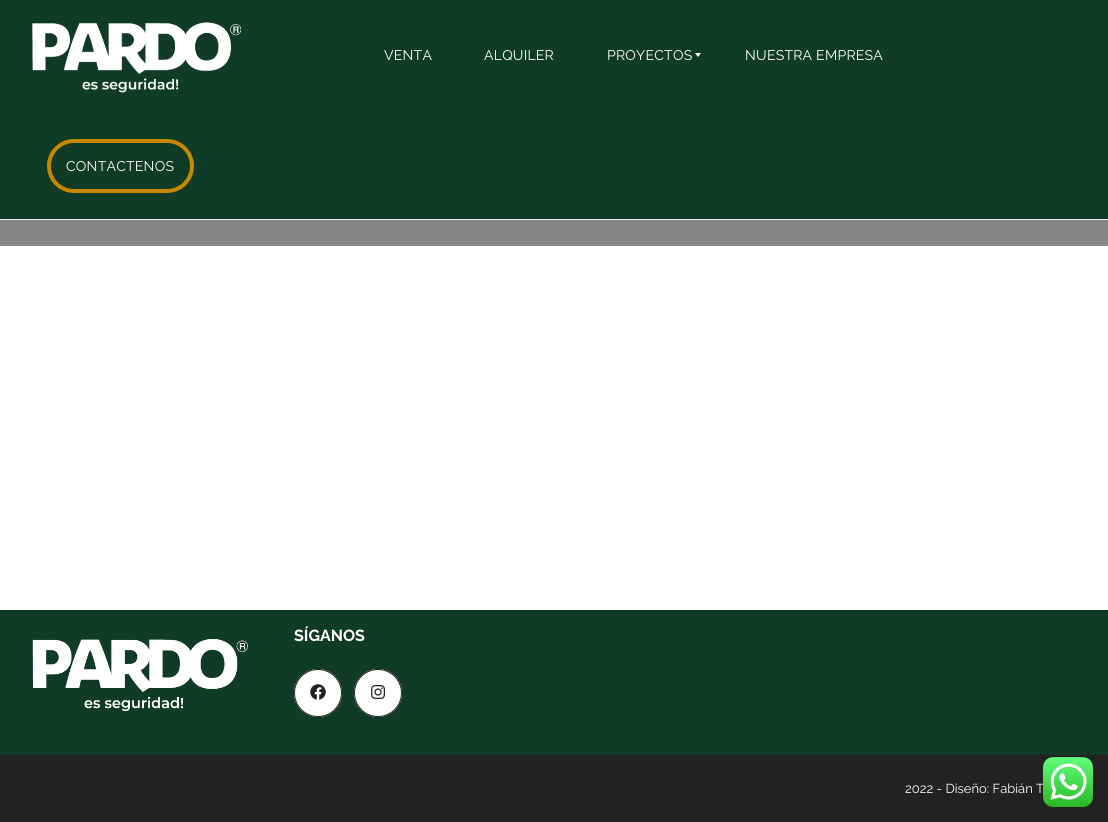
#include <cairo.h>
#include <math.h>
#include <stddef.h>


static void rgb(cairo_t *cr, int r, int g, int b)
{
	cairo_set_source_rgb(cr, r / 255.0, g / 255.0, b / 255.0);
}

static void face(cairo_t *cr, const char *family, double size, int italic, int bold)
{
	cairo_select_font_face(cr, family, italic ? CAIRO_FONT_SLANT_ITALIC : CAIRO_FONT_SLANT_NORMAL,
		bold ? CAIRO_FONT_WEIGHT_BOLD : CAIRO_FONT_WEIGHT_NORMAL);
	cairo_set_font_size(cr, size);
}

static void label(cairo_t *cr, double x, double y, const char *s)
{
	cairo_move_to(cr, x, y);
	cairo_show_text(cr, s);
}

static void tracked(cairo_t *cr, double x, double y, const char *s, double letter, double word)
{
	cairo_move_to(cr, x, y);
	while (*s) {
		char ch[5] = {0};
		int n = 0;
		do ch[n++] = *s++; while ((*s & 0xC0) == 0x80);
		cairo_show_text(cr, ch);
		cairo_rel_move_to(cr, letter + word * (*ch == ' '), 0);
	}
}

static void rect(cairo_t *cr, double x, double y, double w, double h)
{
	cairo_rectangle(cr, x, y, w, h);
	cairo_fill(cr);
}

static void rrect(cairo_t *cr, double x, double y, double w, double h, double r)
{
	cairo_new_sub_path(cr);
	cairo_arc(cr, x + w - r, y + h - r, r, 0, M_PI / 2);
	cairo_arc(cr, x + r, y + h - r, r, M_PI / 2, M_PI);
	cairo_arc(cr, x + r, y + r, r, M_PI, 1.5 * M_PI);
	cairo_arc(cr, x + w - r, y + r, r, 1.5 * M_PI, 2 * M_PI);
	cairo_close_path(cr);
}

static void image(cairo_t *cr, const char *path, double x, double y, double w, double h)
{
	cairo_surface_t *image = cairo_image_surface_create_from_png(path);
	cairo_save(cr);
	cairo_set_source_surface(cr, image, x, y);
	cairo_rectangle(cr, x, y, w, h);
	cairo_fill(cr);
	cairo_restore(cr);
	cairo_surface_destroy(image);
}

static void draw(cairo_t *cr) {
	rgb(cr, 255, 255, 255);
	cairo_paint(cr);
	rgb(cr, 15, 59, 39);
	rect(cr, 0, 0, 1108, 219);
	rgb(cr, 240, 240, 240);
	rect(cr, 0, 219, 1108, 1);
	image(cr, "image0.png", 32, 22, 210, 71);
	face(cr, "Raleway", 14, 0, 0);
	rgb(cr, 255, 255, 255);
	tracked(cr, 384, 60, "VENTA", 0.25, 0);
	tracked(cr, 484, 60, "ALQUILER", 0.25, 0);
	tracked(cr, 607, 60, "PROYECTOS", 0.25, 0);
	cairo_new_path(cr);
	cairo_move_to(cr, 695, 53);
	cairo_line_to(cr, 701, 53);
	cairo_line_to(cr, 698, 57);
	cairo_close_path(cr);
	cairo_fill(cr);
	tracked(cr, 745, 60, "NUESTRA EMPRESA", 0.25, 0);
	rrect(cr, 49, 141, 143, 50, 25);
	rgb(cr, 199, 136, 0);
	cairo_set_line_width(cr, 4);
	cairo_stroke(cr);
	rgb(cr, 255, 255, 255);
	tracked(cr, 66, 171, "CONTACTENOS", 0.25, 0);
	rgb(cr, 134, 134, 134);
	rect(cr, 0, 220, 1108, 26);
	rgb(cr, 15, 59, 39);
	rect(cr, 0, 610, 1108, 145);
	face(cr, "Raleway", 16, 0, 1);
	rgb(cr, 255, 255, 255);
	label(cr, 294, 641, "SÍGANOS");
	cairo_new_path(cr);
	cairo_arc(cr, 318, 693, 24, 0, 2 * M_PI);
	cairo_fill(cr);
	image(cr, "image1.png", 310, 684, 16, 16);
	cairo_arc(cr, 318, 693, 23.5, 0, 2 * M_PI);
	rgb(cr, 34, 34, 34);
	cairo_set_line_width(cr, 1);
	cairo_stroke(cr);
	rgb(cr, 255, 255, 255);
	cairo_arc(cr, 378, 693, 24, 0, 2 * M_PI);
	cairo_fill(cr);
	image(cr, "image2.png", 371, 685, 15, 14);
	cairo_arc(cr, 378, 693, 23.5, 0, 2 * M_PI);
	rgb(cr, 34, 34, 34);
	cairo_stroke(cr);
	image(cr, "image3.png", 32, 639, 216, 73);
	rect(cr, 0, 755, 1108, 67);
	face(cr, "Raleway", 13, 0, 0);
	rgb(cr, 255, 255, 255);
	label(cr, 905, 793, "2022 - Diseño: Fabián T");
	image(cr, "image4.png", 1043, 757, 50, 50);
}

int main(void) {
	cairo_surface_t *surface = cairo_image_surface_create(CAIRO_FORMAT_RGB24, 1108, 822);
	cairo_t *cr = cairo_create(surface);
	cairo_font_options_t *options = cairo_font_options_create();
	cairo_font_options_set_hint_metrics(options, CAIRO_HINT_METRICS_OFF);
	cairo_font_options_set_hint_style(options, CAIRO_HINT_STYLE_NONE);
	cairo_set_font_options(cr, options);
	cairo_set_miter_limit(cr, 4);
	draw(cr);
	cairo_surface_write_to_png(surface, "render.png");
	cairo_font_options_destroy(options);
	cairo_destroy(cr);
	cairo_surface_destroy(surface);
	return 0;
}
